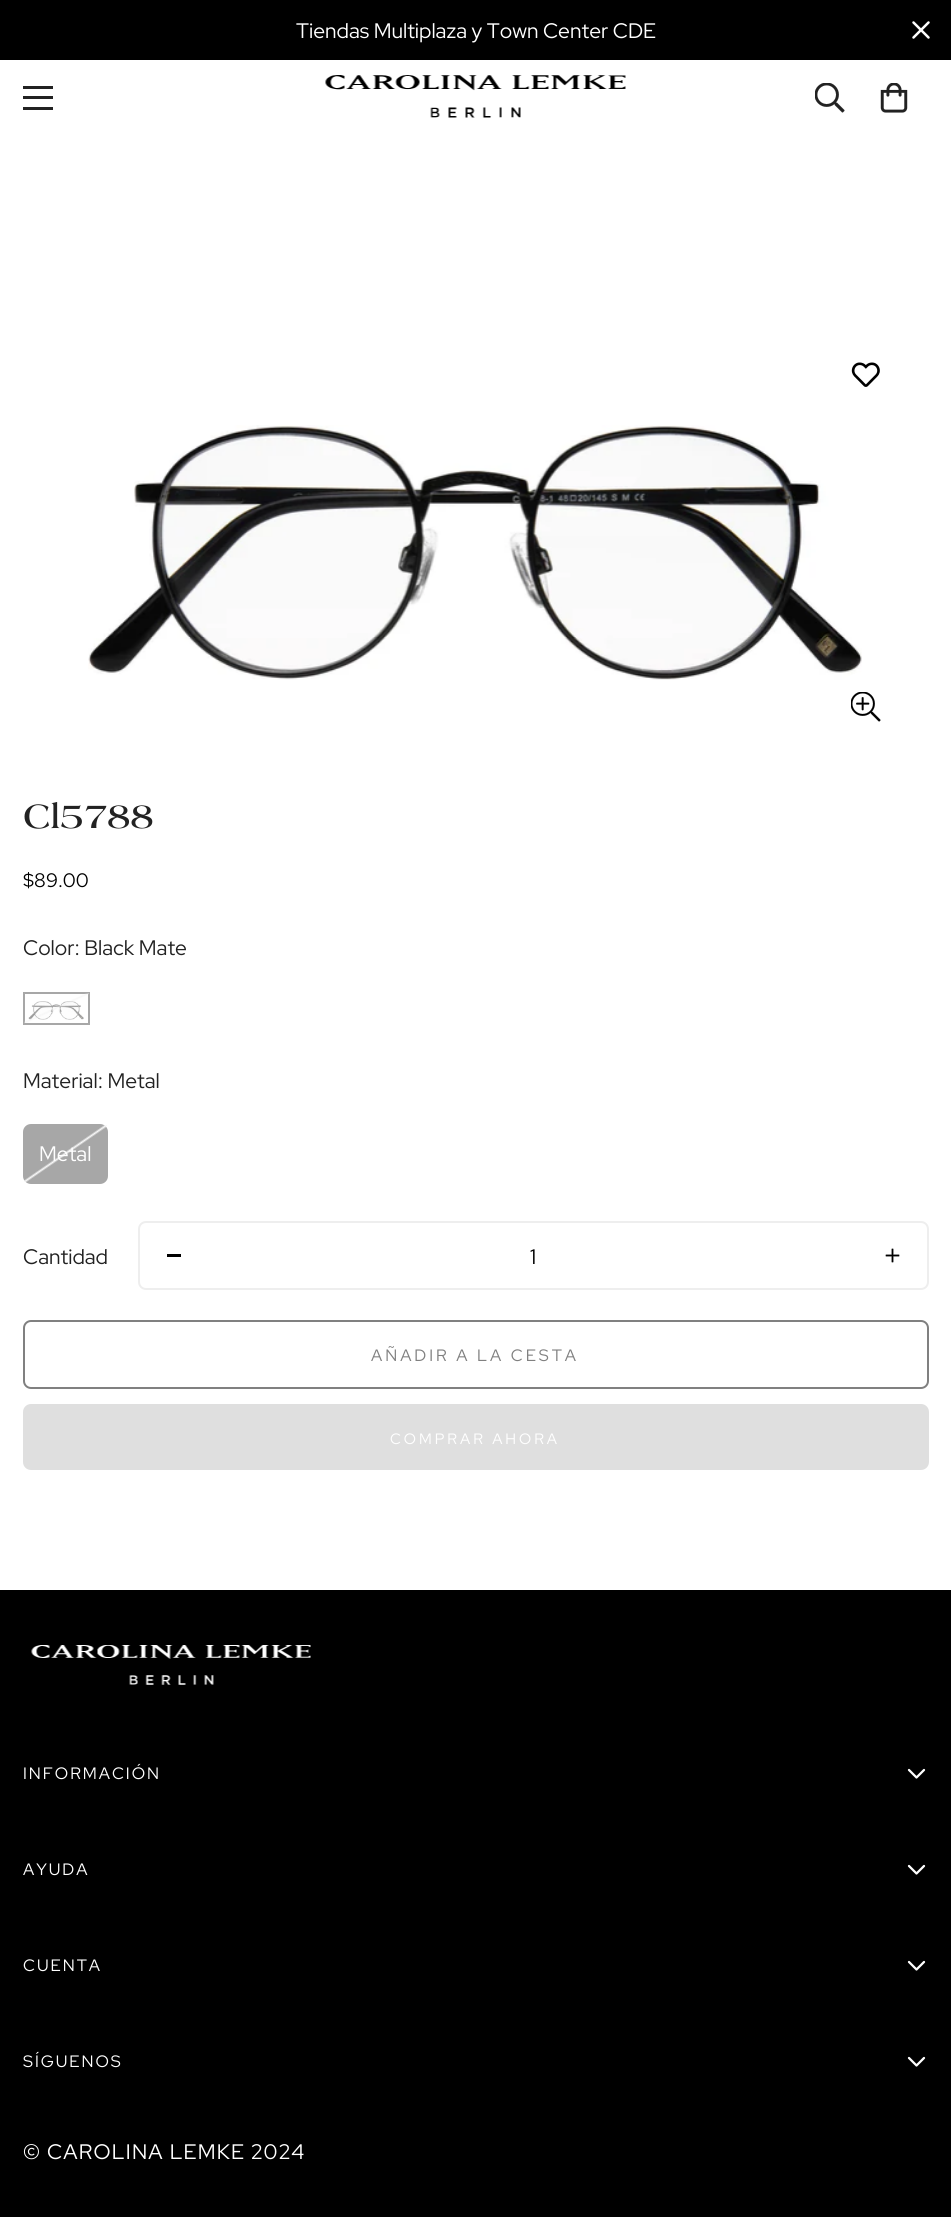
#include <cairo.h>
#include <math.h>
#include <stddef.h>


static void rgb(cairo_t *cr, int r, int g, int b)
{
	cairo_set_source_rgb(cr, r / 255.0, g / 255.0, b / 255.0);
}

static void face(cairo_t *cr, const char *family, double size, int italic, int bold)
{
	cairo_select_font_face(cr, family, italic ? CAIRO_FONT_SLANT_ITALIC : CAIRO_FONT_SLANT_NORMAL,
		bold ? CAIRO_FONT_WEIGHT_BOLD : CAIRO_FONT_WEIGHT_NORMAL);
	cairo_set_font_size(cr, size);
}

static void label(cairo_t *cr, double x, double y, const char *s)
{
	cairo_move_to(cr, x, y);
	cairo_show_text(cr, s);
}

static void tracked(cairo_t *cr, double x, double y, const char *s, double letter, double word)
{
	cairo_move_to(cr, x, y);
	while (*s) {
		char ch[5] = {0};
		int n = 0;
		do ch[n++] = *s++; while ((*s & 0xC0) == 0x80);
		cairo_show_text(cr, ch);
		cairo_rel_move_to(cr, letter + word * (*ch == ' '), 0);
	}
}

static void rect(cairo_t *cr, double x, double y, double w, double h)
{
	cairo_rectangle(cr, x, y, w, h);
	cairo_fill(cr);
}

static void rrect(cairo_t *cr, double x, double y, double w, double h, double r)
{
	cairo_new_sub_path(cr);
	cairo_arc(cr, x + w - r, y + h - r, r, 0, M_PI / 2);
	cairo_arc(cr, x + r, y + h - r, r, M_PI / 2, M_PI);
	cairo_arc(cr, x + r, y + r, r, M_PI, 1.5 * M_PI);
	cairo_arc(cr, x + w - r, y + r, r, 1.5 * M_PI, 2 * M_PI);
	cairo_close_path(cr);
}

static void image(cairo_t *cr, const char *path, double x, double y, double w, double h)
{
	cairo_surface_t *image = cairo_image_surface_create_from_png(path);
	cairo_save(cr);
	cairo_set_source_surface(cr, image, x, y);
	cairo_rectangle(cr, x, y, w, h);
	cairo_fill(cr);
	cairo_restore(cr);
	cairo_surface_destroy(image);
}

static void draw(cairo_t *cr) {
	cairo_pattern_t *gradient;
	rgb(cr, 255, 255, 255);
	cairo_paint(cr);
	rgb(cr, 0, 0, 0);
	rect(cr, 0, 0, 951, 60);
	face(cr, "Red Hat Display", 21, 0, 0);
	rgb(cr, 255, 255, 255);
	label(cr, 296, 38, "Tiendas Multiplaza y Town Center CDE");
	cairo_new_path(cr);
	cairo_move_to(cr, 913.5, 37.5);
	cairo_line_to(cr, 928.5, 22.5);
	cairo_move_to(cr, 913.5, 22.5);
	cairo_line_to(cr, 928.5, 37.5);
	cairo_set_line_width(cr, 2.5);
	cairo_set_line_cap(cr, CAIRO_LINE_CAP_ROUND);
	cairo_set_line_join(cr, CAIRO_LINE_JOIN_ROUND);
	cairo_stroke(cr);
	rgb(cr, 34, 34, 34);
	rect(cr, 23, 96, 30, 3);
	rect(cr, 23, 86, 30, 3);
	rect(cr, 23, 107, 30, 3);
	image(cr, "image0.png", 325, 75, 301, 43);
	image(cr, "image1.png", 815, 83, 30, 30);
	image(cr, "image2.png", 880, 83, 28, 30);
	image(cr, "image3.png", 851, 362, 29, 25);
	image(cr, "image4.png", 88, 425, 774, 255);
	rgb(cr, 255, 255, 255);
	cairo_arc(cr, 865, 706, 34, 0, 2 * M_PI);
	cairo_fill(cr);
	image(cr, "image5.png", 851, 692, 30, 30);
	face(cr, "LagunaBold", 36, 0, 1);
	rgb(cr, 34, 34, 34);
	label(cr, 23, 828, "Cl5788");
	face(cr, "Red Hat Display", 19.5, 0, 0);
	rgb(cr, 0, 0, 0);
	label(cr, 23, 887, "$89.00");
	face(cr, "Red Hat Display", 21, 0, 0);
	rgb(cr, 34, 34, 34);
	label(cr, 23, 955, "Color: Black Mate");
	image(cr, "image6.png", 28, 1001, 56, 19);
	cairo_rectangle(cr, 24, 993, 65, 31);
	rgb(cr, 167, 167, 167);
	cairo_set_line_width(cr, 2);
	cairo_set_line_cap(cr, CAIRO_LINE_CAP_BUTT);
	cairo_set_line_join(cr, CAIRO_LINE_JOIN_MITER);
	cairo_stroke(cr);
	gradient = cairo_pattern_create_linear(45, 983, 68, 1033);
	cairo_pattern_add_color_stop_rgba(gradient, 0.47, 0.933, 0.933, 0.933, 0);
	cairo_pattern_add_color_stop_rgba(gradient, 0.5, 0.933, 0.933, 0.933, 0.4);
	cairo_pattern_add_color_stop_rgba(gradient, 0.53, 0.933, 0.933, 0.933, 0);
	cairo_set_source(cr, gradient);
	cairo_pattern_destroy(gradient);
	rect(cr, 24, 993, 65, 30);
	rgb(cr, 34, 34, 34);
	label(cr, 23, 1088, "Material: Metal");
	rgb(cr, 167, 167, 167);
	rrect(cr, 24, 1125, 83, 58, 7);
	cairo_fill_preserve(cr);
	cairo_stroke(cr);
	gradient = cairo_pattern_create_linear(39, 1115, 92, 1192);
	cairo_pattern_add_color_stop_rgba(gradient, 0.48, 0.973, 0.973, 0.973, 0);
	cairo_pattern_add_color_stop_rgba(gradient, 0.5, 0.973, 0.973, 0.973, 1);
	cairo_pattern_add_color_stop_rgba(gradient, 0.52, 0.973, 0.973, 0.973, 0);
	cairo_set_source(cr, gradient);
	cairo_pattern_destroy(gradient);
	rect(cr, 24, 1125, 83, 57);
	rgb(cr, 255, 255, 255);
	label(cr, 39, 1161, "Metal");
	rgb(cr, 34, 34, 34);
	label(cr, 23, 1264, "Cantidad");
	rrect(cr, 139, 1222, 789, 67, 7);
	rgb(cr, 238, 238, 238);
	cairo_stroke(cr);
	rgb(cr, 0, 0, 0);
	rect(cr, 167, 1254, 14, 3);
	label(cr, 530, 1264, "1");
	image(cr, "image7.png", 885, 1248, 15, 15);
	rrect(cr, 24, 1321, 904, 67, 7);
	rgb(cr, 128, 128, 128);
	cairo_stroke(cr);
	face(cr, "Red Hat Display", 16.5, 0, 0);
	tracked(cr, 371, 1361, "AÑADIR A LA CESTA", 3, 0);
	rgb(cr, 223, 223, 223);
	rrect(cr, 24, 1405, 904, 64, 7);
	cairo_fill_preserve(cr);
	cairo_stroke(cr);
	face(cr, "Red Hat Display", 15, 0, 0);
	rgb(cr, 255, 255, 255);
	tracked(cr, 390, 1444, "COMPRAR AHORA", 3, 0);
	rgb(cr, 0, 0, 0);
	rect(cr, 0, 1590, 951, 627);
	image(cr, "image8.png", 31, 1645, 280, 40);
	face(cr, "Red Hat Display", 16.5, 0, 0);
	rgb(cr, 255, 255, 255);
	tracked(cr, 23, 1779, "INFORMACIÓN", 2, 0);
	image(cr, "image9.png", 907, 1768, 19, 11);
	tracked(cr, 23, 1875, "AYUDA", 2, 0);
	image(cr, "image9.png", 907, 1864, 19, 11);
	tracked(cr, 23, 1971, "CUENTA", 2, 0);
	image(cr, "image9.png", 907, 1960, 19, 11);
	tracked(cr, 23, 2067, "SÍGUENOS", 2, 0);
	image(cr, "image9.png", 907, 2056, 19, 11);
	face(cr, "Red Hat Display", 21, 0, 0);
	tracked(cr, 23, 2159, "© CAROLINA LEMKE 2024", 1.25, 0);
}

int main(void) {
	cairo_surface_t *surface = cairo_image_surface_create(CAIRO_FORMAT_RGB24, 951, 2217);
	cairo_t *cr = cairo_create(surface);
	cairo_font_options_t *options = cairo_font_options_create();
	cairo_font_options_set_hint_metrics(options, CAIRO_HINT_METRICS_OFF);
	cairo_font_options_set_hint_style(options, CAIRO_HINT_STYLE_NONE);
	cairo_set_font_options(cr, options);
	cairo_set_miter_limit(cr, 4);
	draw(cr);
	cairo_surface_write_to_png(surface, "render.png");
	cairo_font_options_destroy(options);
	cairo_destroy(cr);
	cairo_surface_destroy(surface);
	return 0;
}
